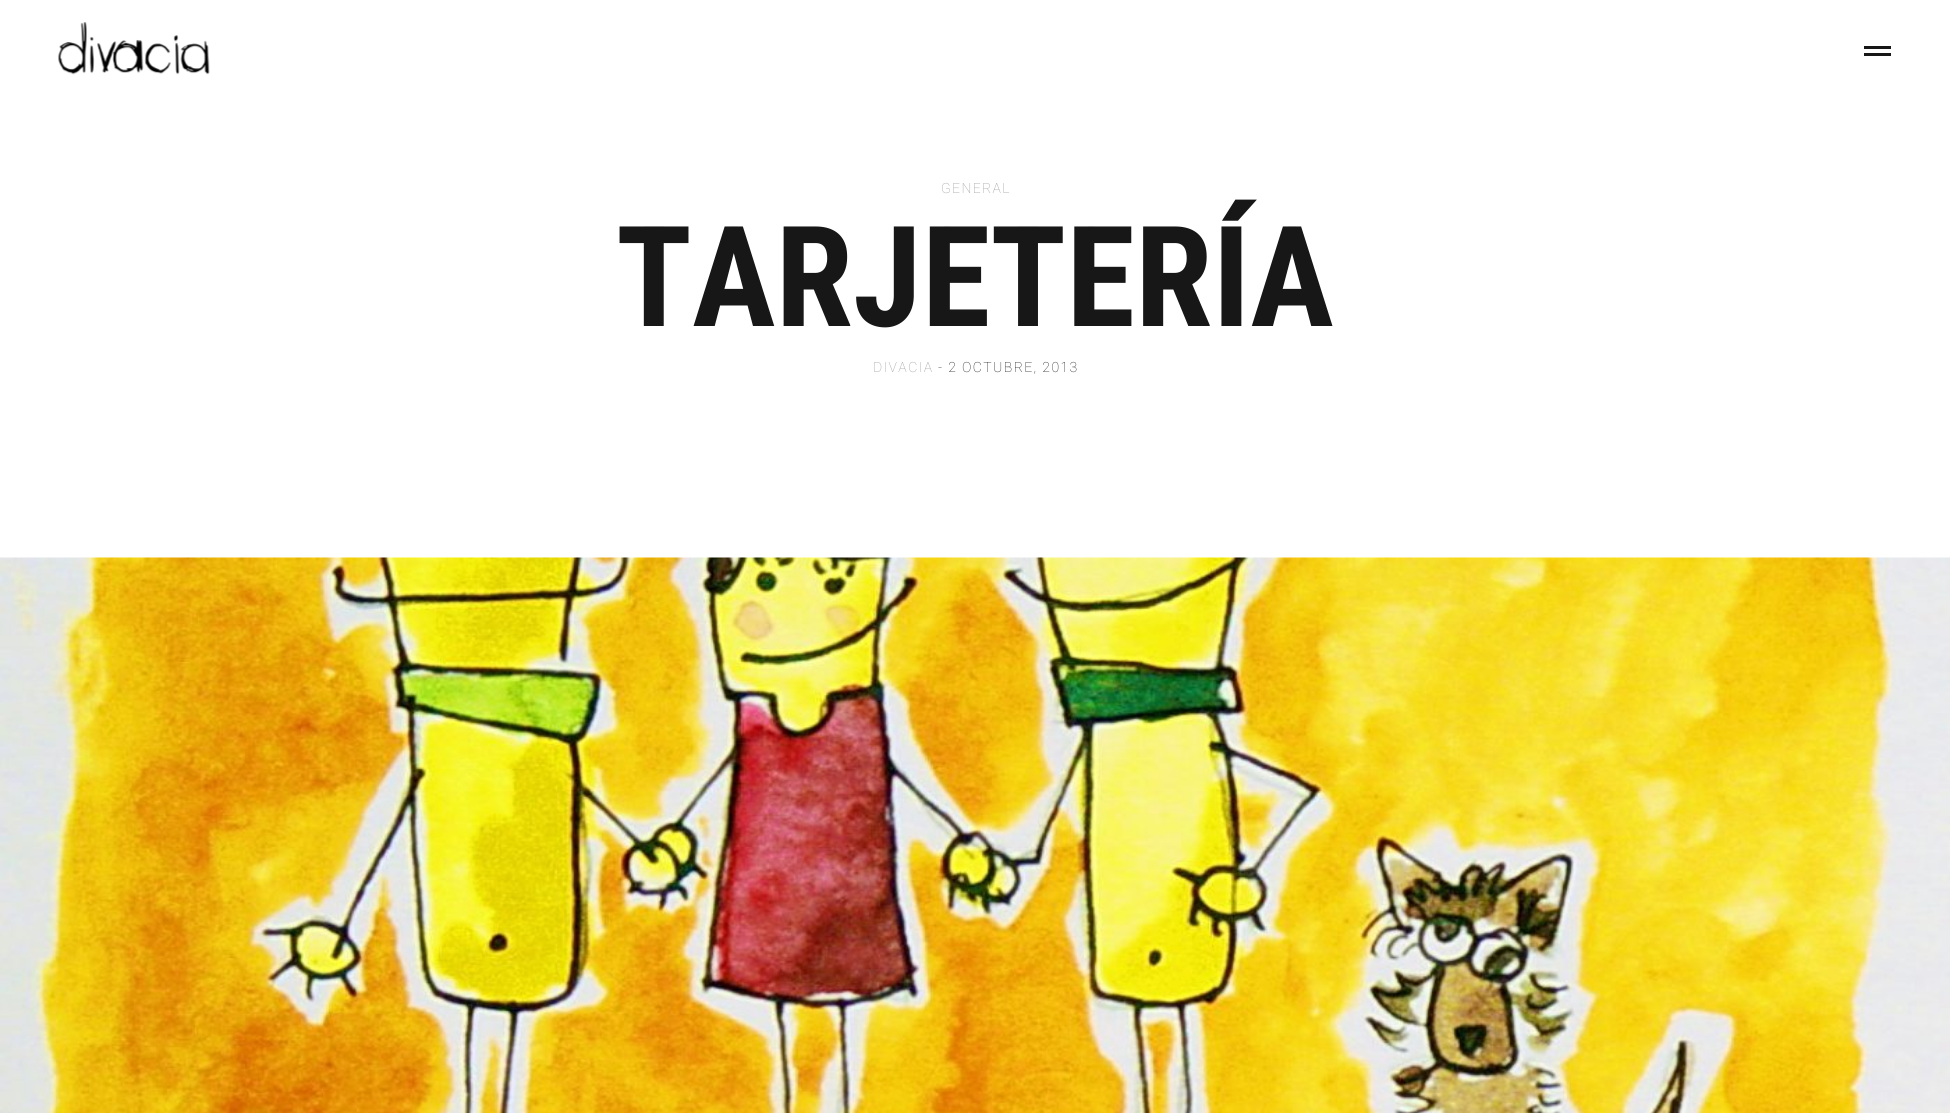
#include <cairo.h>
#include <math.h>
#include <stddef.h>


static void rgb(cairo_t *cr, int r, int g, int b)
{
	cairo_set_source_rgb(cr, r / 255.0, g / 255.0, b / 255.0);
}

static void face(cairo_t *cr, const char *family, double size, int italic, int bold)
{
	cairo_select_font_face(cr, family, italic ? CAIRO_FONT_SLANT_ITALIC : CAIRO_FONT_SLANT_NORMAL,
		bold ? CAIRO_FONT_WEIGHT_BOLD : CAIRO_FONT_WEIGHT_NORMAL);
	cairo_set_font_size(cr, size);
}

static void label(cairo_t *cr, double x, double y, const char *s)
{
	cairo_move_to(cr, x, y);
	cairo_show_text(cr, s);
}

static void tracked(cairo_t *cr, double x, double y, const char *s, double letter, double word)
{
	cairo_move_to(cr, x, y);
	while (*s) {
		char ch[5] = {0};
		int n = 0;
		do ch[n++] = *s++; while ((*s & 0xC0) == 0x80);
		cairo_show_text(cr, ch);
		cairo_rel_move_to(cr, letter + word * (*ch == ' '), 0);
	}
}

static void rect(cairo_t *cr, double x, double y, double w, double h)
{
	cairo_rectangle(cr, x, y, w, h);
	cairo_fill(cr);
}

static void image(cairo_t *cr, const char *path, double x, double y, double w, double h)
{
	cairo_surface_t *image = cairo_image_surface_create_from_png(path);
	cairo_save(cr);
	cairo_set_source_surface(cr, image, x, y);
	cairo_rectangle(cr, x, y, w, h);
	cairo_fill(cr);
	cairo_restore(cr);
	cairo_surface_destroy(image);
}

static void draw(cairo_t *cr) {
	rgb(cr, 255, 255, 255);
	cairo_paint(cr);
	image(cr, "image0.png", 58, 22, 152, 53);
	rgb(cr, 23, 23, 23);
	rect(cr, 1864, 46, 27, 3);
	rect(cr, 1864, 53, 27, 3);
	face(cr, "Roboto Thin", 14, 0, 0);
	rgb(cr, 153, 153, 153);
	tracked(cr, 941, 193, "GENERAL", 1.4, 0);
	face(cr, "Roboto Condensed", 140, 0, 1);
	rgb(cr, 23, 23, 23);
	label(cr, 616, 326, "TARJETERÍA");
	face(cr, "Roboto Thin", 14, 0, 0);
	rgb(cr, 153, 153, 153);
	tracked(cr, 873, 372, "DIVACIA", 1.4, 0);
	rgb(cr, 23, 23, 23);
	tracked(cr, 938, 372, "- 2 OCTUBRE, 2013", 1.4, 0);
	image(cr, "image1.png", 0, 557, 1950, 556);
}

int main(void) {
	cairo_surface_t *surface = cairo_image_surface_create(CAIRO_FORMAT_RGB24, 1950, 1113);
	cairo_t *cr = cairo_create(surface);
	cairo_font_options_t *options = cairo_font_options_create();
	cairo_font_options_set_hint_metrics(options, CAIRO_HINT_METRICS_OFF);
	cairo_font_options_set_hint_style(options, CAIRO_HINT_STYLE_NONE);
	cairo_set_font_options(cr, options);
	cairo_set_miter_limit(cr, 4);
	draw(cr);
	cairo_surface_write_to_png(surface, "render.png");
	cairo_font_options_destroy(options);
	cairo_destroy(cr);
	cairo_surface_destroy(surface);
	return 0;
}
